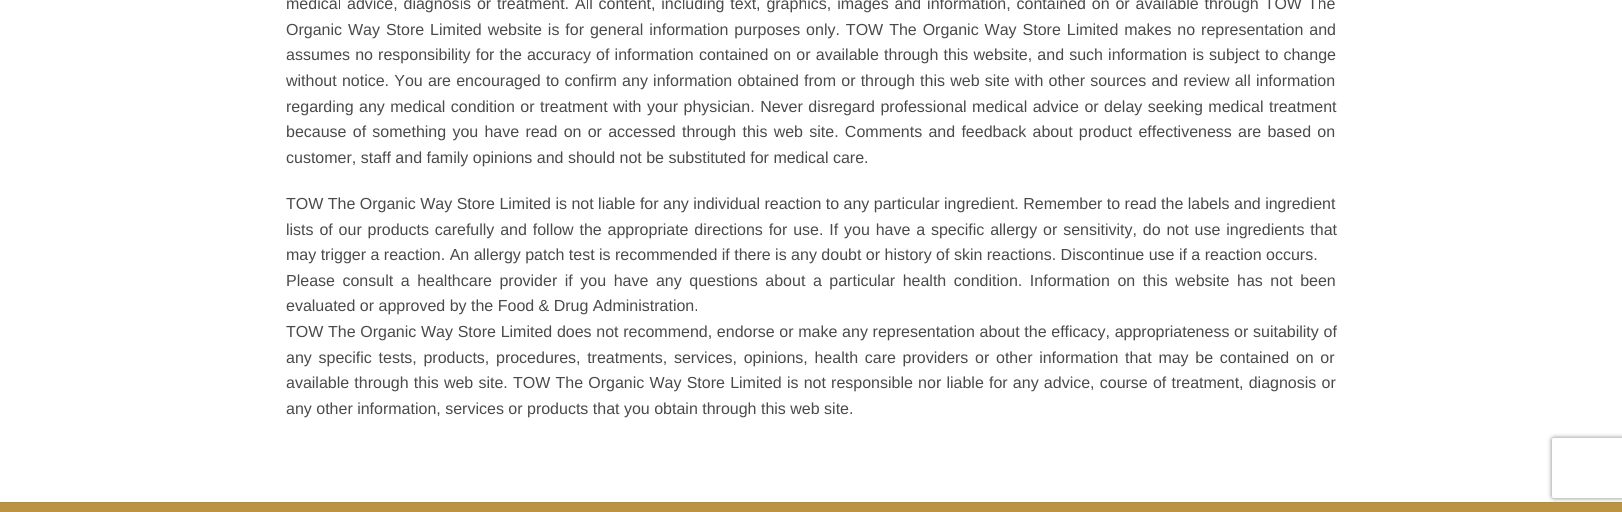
#include <cairo.h>
#include <math.h>
#include <stddef.h>


static void rgb(cairo_t *cr, int r, int g, int b)
{
	cairo_set_source_rgb(cr, r / 255.0, g / 255.0, b / 255.0);
}

static void face(cairo_t *cr, const char *family, double size, int italic, int bold)
{
	cairo_select_font_face(cr, family, italic ? CAIRO_FONT_SLANT_ITALIC : CAIRO_FONT_SLANT_NORMAL,
		bold ? CAIRO_FONT_WEIGHT_BOLD : CAIRO_FONT_WEIGHT_NORMAL);
	cairo_set_font_size(cr, size);
}

static void label(cairo_t *cr, double x, double y, const char *s)
{
	cairo_move_to(cr, x, y);
	cairo_show_text(cr, s);
}

static void tracked(cairo_t *cr, double x, double y, const char *s, double letter, double word)
{
	cairo_move_to(cr, x, y);
	while (*s) {
		char ch[5] = {0};
		int n = 0;
		do ch[n++] = *s++; while ((*s & 0xC0) == 0x80);
		cairo_show_text(cr, ch);
		cairo_rel_move_to(cr, letter + word * (*ch == ' '), 0);
	}
}

static void rect(cairo_t *cr, double x, double y, double w, double h)
{
	cairo_rectangle(cr, x, y, w, h);
	cairo_fill(cr);
}

static void rrect(cairo_t *cr, double x, double y, double w, double h, double r)
{
	cairo_new_sub_path(cr);
	cairo_arc(cr, x + w - r, y + h - r, r, 0, M_PI / 2);
	cairo_arc(cr, x + r, y + h - r, r, M_PI / 2, M_PI);
	cairo_arc(cr, x + r, y + r, r, M_PI, 1.5 * M_PI);
	cairo_arc(cr, x + w - r, y + r, r, 1.5 * M_PI, 2 * M_PI);
	cairo_close_path(cr);
}

static void soft_shadow(cairo_t *cr, double x, double y, double w, double h, double r, double blur, double alpha)
{
	cairo_push_group_with_content(cr, CAIRO_CONTENT_ALPHA);
	cairo_set_operator(cr, CAIRO_OPERATOR_SOURCE);
	for (int i = 15; i >= -15 && fmin(w, h) + blur * i / 3 > 0; i -= 2) {
		double e = blur * i / 6;
		cairo_set_source_rgba(cr, 0, 0, 0, alpha * erfc((i - 1) / 8.5) / 2);
		rrect(cr, x - e, y - e, w + 2 * e, h + 2 * e, fmax(0, fmin(r + e + blur * .6, fmin(w, h) / 2 + e)));
		cairo_fill(cr);
	}
	cairo_pattern_t *soft = cairo_pop_group(cr);
	cairo_mask(cr, soft);
	cairo_pattern_destroy(soft);
}

static void draw(cairo_t *cr) {
	rgb(cr, 255, 255, 255);
	cairo_paint(cr);
	face(cr, "Liberation Sans", 16, 0, 0);
	rgb(cr, 74, 74, 74);
	tracked(cr, 286, 9, "medical advice, diagnosis or treatment. All content, including text, graphics, images and information, contained on or available through TOW The", 0, 1.4);
	tracked(cr, 286, 35, "Organic Way Store Limited website is for general information purposes only. TOW The Organic Way Store Limited makes no representation and", 0, 1.5);
	tracked(cr, 286, 60, "assumes no responsibility for the accuracy of information contained on or available through this website, and such information is subject to change", 0, 0.7);
	tracked(cr, 286, 86, "without notice. You are encouraged to confirm any information obtained from or through this web site with other sources and review all information", 0, 0.75);
	tracked(cr, 286, 112, "regarding any medical condition or treatment with your physician. Never disregard professional medical advice or delay seeking medical treatment", 0, 1);
	tracked(cr, 286, 137, "because of something you have read on or accessed through this web site. Comments and feedback about product effectiveness are based on", 0, 1.8);
	label(cr, 286, 163, "customer, staff and family opinions and should not be substituted for medical care.");
	label(cr, 286, 209, "TOW The Organic Way Store Limited is not liable for any individual reaction to any particular ingredient. Remember to read the labels and ingredient");
	tracked(cr, 286, 235, "lists of our products carefully and follow the appropriate directions for use. If you have a specific allergy or sensitivity, do not use ingredients that", 0, 1.4);
	label(cr, 286, 260, "may trigger a reaction. An allergy patch test is recommended if there is any doubt or history of skin reactions. Discontinue use if a reaction occurs.");
	tracked(cr, 286, 286, "Please consult a healthcare provider if you have any questions about a particular health condition. Information on this website has not been", 0, 3.1);
	label(cr, 286, 311, "evaluated or approved by the Food & Drug Administration.");
	tracked(cr, 286, 337, "TOW The Organic Way Store Limited does not recommend, endorse or make any representation about the efficacy, appropriateness or suitability of", 0, 0.25);
	tracked(cr, 286, 363, "any specific tests, products, procedures, treatments, services, opinions, health care providers or other information that may be contained on or", 0, 2.25);
	tracked(cr, 286, 388, "available through this web site. TOW The Organic Way Store Limited is not responsible nor liable for any advice, course of treatment, diagnosis or", 0, 0.75);
	label(cr, 286, 414, "any other information, services or products that you obtain through this web site.");
	rgb(cr, 186, 148, 67);
	rect(cr, 0, 503, 1622, 9);
	rgb(cr, 177, 141, 64);
	rect(cr, 0, 502, 1622, 1);
	cairo_save(cr);
	cairo_set_fill_rule(cr, CAIRO_FILL_RULE_EVEN_ODD);
	cairo_new_path(cr);
	cairo_move_to(cr, 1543, 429);
	cairo_line_to(cr, 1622, 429);
	cairo_line_to(cr, 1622, 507);
	cairo_line_to(cr, 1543, 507);
	cairo_close_path(cr);
	cairo_move_to(cr, 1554, 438);
	cairo_line_to(cr, 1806, 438);
	cairo_curve_to(cr, 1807, 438, 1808, 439, 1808, 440);
	cairo_line_to(cr, 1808, 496);
	cairo_curve_to(cr, 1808, 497, 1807, 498, 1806, 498);
	cairo_line_to(cr, 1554, 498);
	cairo_curve_to(cr, 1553, 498, 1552, 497, 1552, 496);
	cairo_line_to(cr, 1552, 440);
	cairo_curve_to(cr, 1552, 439, 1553, 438, 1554, 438);
	cairo_close_path(cr);
	cairo_clip(cr);
	rgb(cr, 128, 128, 128);
	soft_shadow(cr, 1552, 438, 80, 60, 2, 2.5, 1);
	cairo_restore(cr);
}

int main(void) {
	cairo_surface_t *surface = cairo_image_surface_create(CAIRO_FORMAT_RGB24, 1622, 512);
	cairo_t *cr = cairo_create(surface);
	cairo_font_options_t *options = cairo_font_options_create();
	cairo_font_options_set_hint_metrics(options, CAIRO_HINT_METRICS_OFF);
	cairo_font_options_set_hint_style(options, CAIRO_HINT_STYLE_NONE);
	cairo_set_font_options(cr, options);
	cairo_set_miter_limit(cr, 4);
	draw(cr);
	cairo_surface_write_to_png(surface, "render.png");
	cairo_font_options_destroy(options);
	cairo_destroy(cr);
	cairo_surface_destroy(surface);
	return 0;
}
